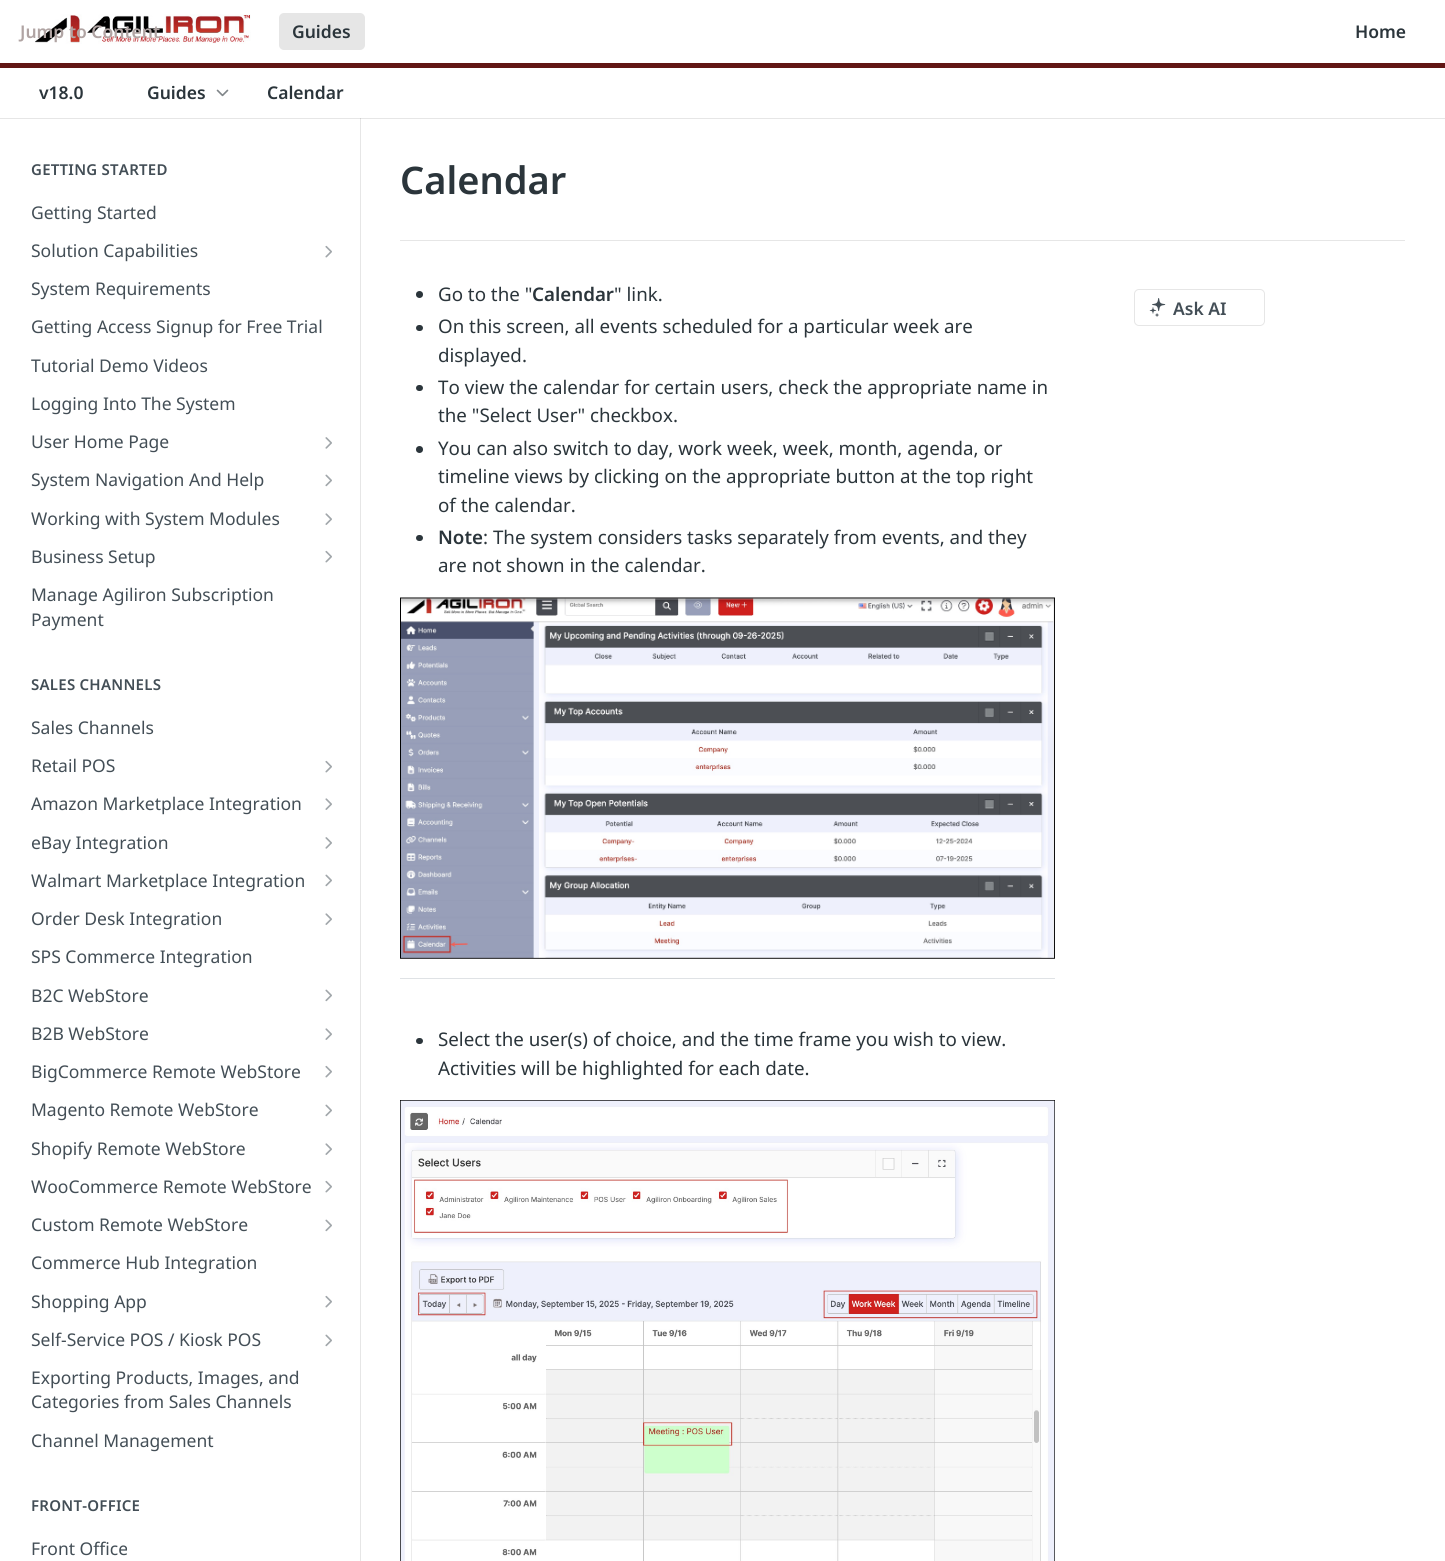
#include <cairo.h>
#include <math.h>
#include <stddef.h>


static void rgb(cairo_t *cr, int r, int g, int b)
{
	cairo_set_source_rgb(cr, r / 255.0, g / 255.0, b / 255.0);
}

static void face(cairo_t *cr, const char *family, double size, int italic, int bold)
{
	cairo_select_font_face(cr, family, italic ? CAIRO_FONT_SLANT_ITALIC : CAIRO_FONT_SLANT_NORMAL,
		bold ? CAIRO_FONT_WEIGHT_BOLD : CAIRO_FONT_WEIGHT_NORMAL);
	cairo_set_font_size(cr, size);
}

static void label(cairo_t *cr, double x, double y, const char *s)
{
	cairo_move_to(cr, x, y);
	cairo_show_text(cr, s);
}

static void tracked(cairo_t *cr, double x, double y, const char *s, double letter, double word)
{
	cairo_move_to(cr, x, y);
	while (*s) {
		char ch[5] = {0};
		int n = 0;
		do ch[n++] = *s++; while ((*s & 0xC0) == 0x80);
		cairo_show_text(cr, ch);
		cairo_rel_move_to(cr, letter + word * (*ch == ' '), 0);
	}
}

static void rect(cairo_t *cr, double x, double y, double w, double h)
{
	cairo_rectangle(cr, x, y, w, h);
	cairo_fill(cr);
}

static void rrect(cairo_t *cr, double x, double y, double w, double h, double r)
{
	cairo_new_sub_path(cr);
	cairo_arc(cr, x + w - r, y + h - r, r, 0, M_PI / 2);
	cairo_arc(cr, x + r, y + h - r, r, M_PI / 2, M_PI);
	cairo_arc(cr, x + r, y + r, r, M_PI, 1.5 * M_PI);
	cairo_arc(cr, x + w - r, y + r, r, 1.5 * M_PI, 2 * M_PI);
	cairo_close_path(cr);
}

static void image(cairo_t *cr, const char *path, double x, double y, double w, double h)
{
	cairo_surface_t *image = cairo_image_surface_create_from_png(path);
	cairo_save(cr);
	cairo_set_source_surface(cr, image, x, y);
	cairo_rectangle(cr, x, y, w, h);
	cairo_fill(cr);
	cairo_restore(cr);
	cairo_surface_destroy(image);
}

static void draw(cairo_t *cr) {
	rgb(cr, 255, 255, 255);
	cairo_paint(cr);
	rgb(cr, 230, 230, 230);
	cairo_new_path(cr);
	cairo_move_to(cr, 1, 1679);
	cairo_line_to(cr, 361, 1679);
	cairo_line_to(cr, 361, 118);
	cairo_line_to(cr, 360, 118);
	cairo_line_to(cr, 360, 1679);
	cairo_close_path(cr);
	cairo_fill(cr);
	cairo_set_source_rgba(cr, 0, 0, 0, 0.1);
	rect(cr, 0, 118, 1445, 1);
	rgb(cr, 98, 22, 20);
	rect(cr, 0, 63, 1445, 5);
	image(cr, "image0.png", 35, 14, 216, 30);
	face(cr, "Noto Sans SemiBold", 17.5, 0, 0);
	rgb(cr, 176, 164, 163);
	label(cr, 20, 38, "Jump to Content");
	rgb(cr, 230, 230, 230);
	rrect(cr, 279, 13, 86, 37, 5);
	cairo_fill(cr);
	rgb(cr, 43, 53, 59);
	label(cr, 292, 38, "Guides");
	label(cr, 1355, 38, "Home");
	label(cr, 39, 99, "v18.0");
	label(cr, 147, 99, "Guides");
	image(cr, "image1.png", 216, 89, 13, 8);
	label(cr, 267, 99, "Calendar");
	face(cr, "Noto Sans SemiBold", 15, 0, 0);
	rgb(cr, 67, 78, 86);
	tracked(cr, 31, 175, "GETTING STARTED", 0.25, 0);
	face(cr, "Noto Sans", 17.5, 0, 0);
	label(cr, 31, 219, "Getting Started");
	label(cr, 31, 257, "Solution Capabilities");
	image(cr, "image2.png", 325, 245, 7, 13);
	label(cr, 31, 295, "System Requirements");
	label(cr, 31, 333, "Getting Access Signup for Free Trial");
	label(cr, 31, 372, "Tutorial Demo Videos");
	label(cr, 31, 410, "Logging Into The System");
	label(cr, 31, 448, "User Home Page");
	image(cr, "image3.png", 325, 437, 7, 12);
	label(cr, 31, 486, "System Navigation And Help");
	image(cr, "image4.png", 325, 474, 7, 13);
	label(cr, 31, 525, "Working with System Modules");
	image(cr, "image5.png", 325, 513, 7, 12);
	label(cr, 31, 563, "Business Setup");
	image(cr, "image2.png", 325, 550, 7, 13);
	label(cr, 31, 601, "Manage Agiliron Subscription");
	label(cr, 31, 626, "Payment");
	face(cr, "Noto Sans SemiBold", 15, 0, 0);
	tracked(cr, 31, 690, "SALES CHANNELS", 0.25, 0);
	face(cr, "Noto Sans", 17.5, 0, 0);
	label(cr, 31, 734, "Sales Channels");
	label(cr, 31, 772, "Retail POS");
	image(cr, "image2.png", 325, 760, 7, 13);
	label(cr, 31, 810, "Amazon Marketplace Integration");
	image(cr, "image5.png", 325, 798, 7, 12);
	label(cr, 31, 849, "eBay Integration");
	image(cr, "image3.png", 325, 837, 7, 12);
	label(cr, 31, 887, "Walmart Marketplace Integration");
	image(cr, "image4.png", 325, 874, 7, 13);
	label(cr, 31, 925, "Order Desk Integration");
	image(cr, "image5.png", 325, 913, 7, 12);
	label(cr, 31, 963, "SPS Commerce Integration");
	label(cr, 31, 1002, "B2C WebStore");
	image(cr, "image4.png", 325, 989, 7, 13);
	label(cr, 31, 1040, "B2B WebStore");
	image(cr, "image5.png", 325, 1028, 7, 12);
	label(cr, 31, 1078, "BigCommerce Remote WebStore");
	image(cr, "image2.png", 325, 1065, 7, 13);
	label(cr, 31, 1116, "Magento Remote WebStore");
	image(cr, "image4.png", 325, 1104, 7, 13);
	label(cr, 31, 1155, "Shopify Remote WebStore");
	image(cr, "image5.png", 325, 1143, 7, 12);
	label(cr, 31, 1193, "WooCommerce Remote WebStore");
	image(cr, "image2.png", 325, 1180, 7, 13);
	label(cr, 31, 1231, "Custom Remote WebStore");
	image(cr, "image4.png", 325, 1219, 7, 13);
	label(cr, 31, 1269, "Commerce Hub Integration");
	label(cr, 31, 1308, "Shopping App");
	image(cr, "image2.png", 325, 1295, 7, 13);
	label(cr, 31, 1346, "Self-Service POS / Kiosk POS");
	image(cr, "image4.png", 325, 1334, 7, 13);
	label(cr, 31, 1384, "Exporting Products, Images, and");
	label(cr, 31, 1408, "Categories from Sales Channels");
	label(cr, 31, 1447, "Channel Management");
	face(cr, "Noto Sans SemiBold", 15, 0, 0);
	tracked(cr, 31, 1511, "FRONT-OFFICE", 0.25, 0);
	face(cr, "Noto Sans", 17.5, 0, 0);
	label(cr, 31, 1555, "Front Office");
	rgb(cr, 230, 230, 230);
	rect(cr, 400, 240, 1005, 1);
	face(cr, "Noto Sans SemiBold", 38, 0, 0);
	rgb(cr, 43, 53, 59);
	label(cr, 400, 194, "Calendar");
	cairo_new_path(cr);
	cairo_arc(cr, 419.5, 294.5, 3.5, 0, 2 * M_PI);
	cairo_fill(cr);
	face(cr, "Noto Sans", 18.75, 0, 0);
	label(cr, 438, 301, "Go to the \"");
	face(cr, "Noto Sans SemiBold", 18.75, 0, 0);
	label(cr, 532, 301, "Calendar");
	face(cr, "Noto Sans", 18.75, 0, 0);
	label(cr, 614, 301, "\" link.");
	rrect(cr, 416, 325, 7, 6, 3);
	cairo_fill(cr);
	label(cr, 438, 333, "On this screen, all events scheduled for a particular week are");
	label(cr, 438, 362, "displayed.");
	rrect(cr, 416, 385, 7, 6, 3);
	cairo_fill(cr);
	label(cr, 438, 394, "To view the calendar for certain users, check the appropriate name in");
	label(cr, 438, 422, "the \"Select User\" checkbox.");
	cairo_new_path(cr);
	cairo_arc(cr, 419.5, 449.5, 3.5, 0, 2 * M_PI);
	cairo_fill(cr);
	label(cr, 438, 455, "You can also switch to day, work week, week, month, agenda, or");
	label(cr, 438, 483, "timeline views by clicking on the appropriate button at the top right");
	label(cr, 438, 512, "of the calendar.");
	rrect(cr, 416, 535, 7, 6, 3);
	cairo_fill(cr);
	face(cr, "Noto Sans SemiBold", 18.75, 0, 0);
	label(cr, 438, 544, "Note");
	face(cr, "Noto Sans", 18.75, 0, 0);
	label(cr, 483, 544, ": The system considers tasks separately from events, and they");
	label(cr, 438, 572, "are not shown in the calendar.");
	image(cr, "image6.png", 400, 597, 655, 362);
	rgb(cr, 223, 226, 229);
	rect(cr, 400, 978, 655, 1);
	rgb(cr, 43, 53, 59);
	rrect(cr, 416, 1038, 7, 6, 3);
	cairo_fill(cr);
	label(cr, 438, 1046, "Select the user(s) of choice, and the time frame you wish to view.");
	label(cr, 438, 1075, "Activities will be highlighted for each date.");
	image(cr, "image7.png", 400, 1100, 655, 461);
	rrect(cr, 1134.5, 289.5, 130, 36, 4.5);
	rgb(cr, 230, 230, 230);
	cairo_set_line_width(cr, 1);
	cairo_stroke(cr);
	image(cr, "image8.png", 1149, 298, 17, 19);
	face(cr, "Noto Sans SemiBold", 17.5, 0, 0);
	rgb(cr, 67, 78, 86);
	label(cr, 1173, 315, "Ask AI");
}

int main(void) {
	cairo_surface_t *surface = cairo_image_surface_create(CAIRO_FORMAT_RGB24, 1445, 1561);
	cairo_t *cr = cairo_create(surface);
	cairo_font_options_t *options = cairo_font_options_create();
	cairo_font_options_set_hint_metrics(options, CAIRO_HINT_METRICS_OFF);
	cairo_font_options_set_hint_style(options, CAIRO_HINT_STYLE_NONE);
	cairo_set_font_options(cr, options);
	cairo_set_miter_limit(cr, 4);
	draw(cr);
	cairo_surface_write_to_png(surface, "render.png");
	cairo_font_options_destroy(options);
	cairo_destroy(cr);
	cairo_surface_destroy(surface);
	return 0;
}
